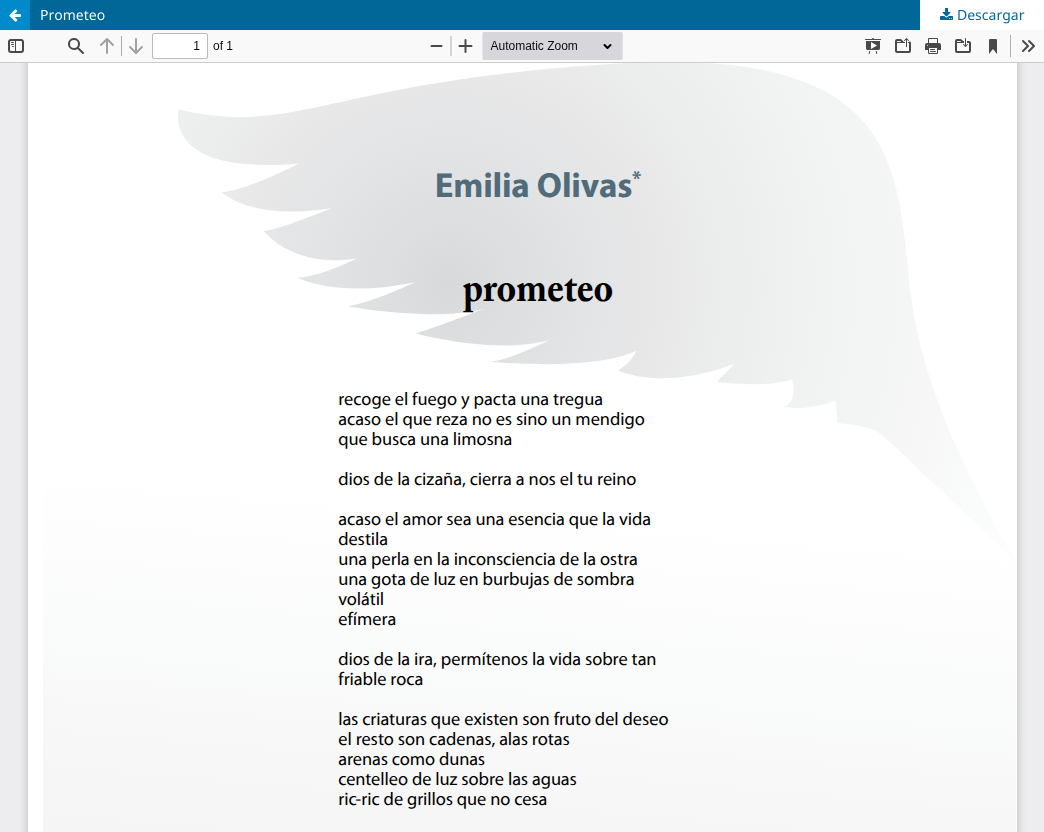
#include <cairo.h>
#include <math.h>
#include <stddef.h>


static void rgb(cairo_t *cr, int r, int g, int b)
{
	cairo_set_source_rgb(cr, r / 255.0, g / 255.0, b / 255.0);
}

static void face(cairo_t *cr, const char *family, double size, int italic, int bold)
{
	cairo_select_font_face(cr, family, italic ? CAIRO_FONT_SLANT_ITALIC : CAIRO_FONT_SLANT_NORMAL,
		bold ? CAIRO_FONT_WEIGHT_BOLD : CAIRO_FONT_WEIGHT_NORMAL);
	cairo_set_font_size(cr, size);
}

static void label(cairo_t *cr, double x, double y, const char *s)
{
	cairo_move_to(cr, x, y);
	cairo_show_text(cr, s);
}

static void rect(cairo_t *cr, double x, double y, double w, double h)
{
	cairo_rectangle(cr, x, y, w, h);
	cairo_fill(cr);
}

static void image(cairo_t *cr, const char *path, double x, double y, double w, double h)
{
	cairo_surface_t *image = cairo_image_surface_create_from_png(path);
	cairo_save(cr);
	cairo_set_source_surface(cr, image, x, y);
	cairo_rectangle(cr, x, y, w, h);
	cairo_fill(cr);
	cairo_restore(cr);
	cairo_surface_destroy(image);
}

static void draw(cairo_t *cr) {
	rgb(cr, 255, 255, 255);
	cairo_paint(cr);
	rgb(cr, 0, 103, 152);
	rect(cr, 30, 0, 890, 30);
	rgb(cr, 0, 138, 203);
	rect(cr, 0, 0, 30, 30);
	image(cr, "image0.png", 9, 9, 12, 13);
	face(cr, "Noto Sans", 14, 0, 0);
	rgb(cr, 255, 255, 255);
	label(cr, 40, 20, "Prometeo");
	image(cr, "image1.png", 940, 8, 13, 12);
	rgb(cr, 0, 103, 152);
	label(cr, 957, 20, "Descargar");
	image(cr, "image2.png", 0, 30, 1044, 802);
}

int main(void) {
	cairo_surface_t *surface = cairo_image_surface_create(CAIRO_FORMAT_RGB24, 1044, 832);
	cairo_t *cr = cairo_create(surface);
	cairo_font_options_t *options = cairo_font_options_create();
	cairo_font_options_set_hint_metrics(options, CAIRO_HINT_METRICS_OFF);
	cairo_font_options_set_hint_style(options, CAIRO_HINT_STYLE_NONE);
	cairo_set_font_options(cr, options);
	cairo_set_miter_limit(cr, 4);
	draw(cr);
	cairo_surface_write_to_png(surface, "render.png");
	cairo_font_options_destroy(options);
	cairo_destroy(cr);
	cairo_surface_destroy(surface);
	return 0;
}
